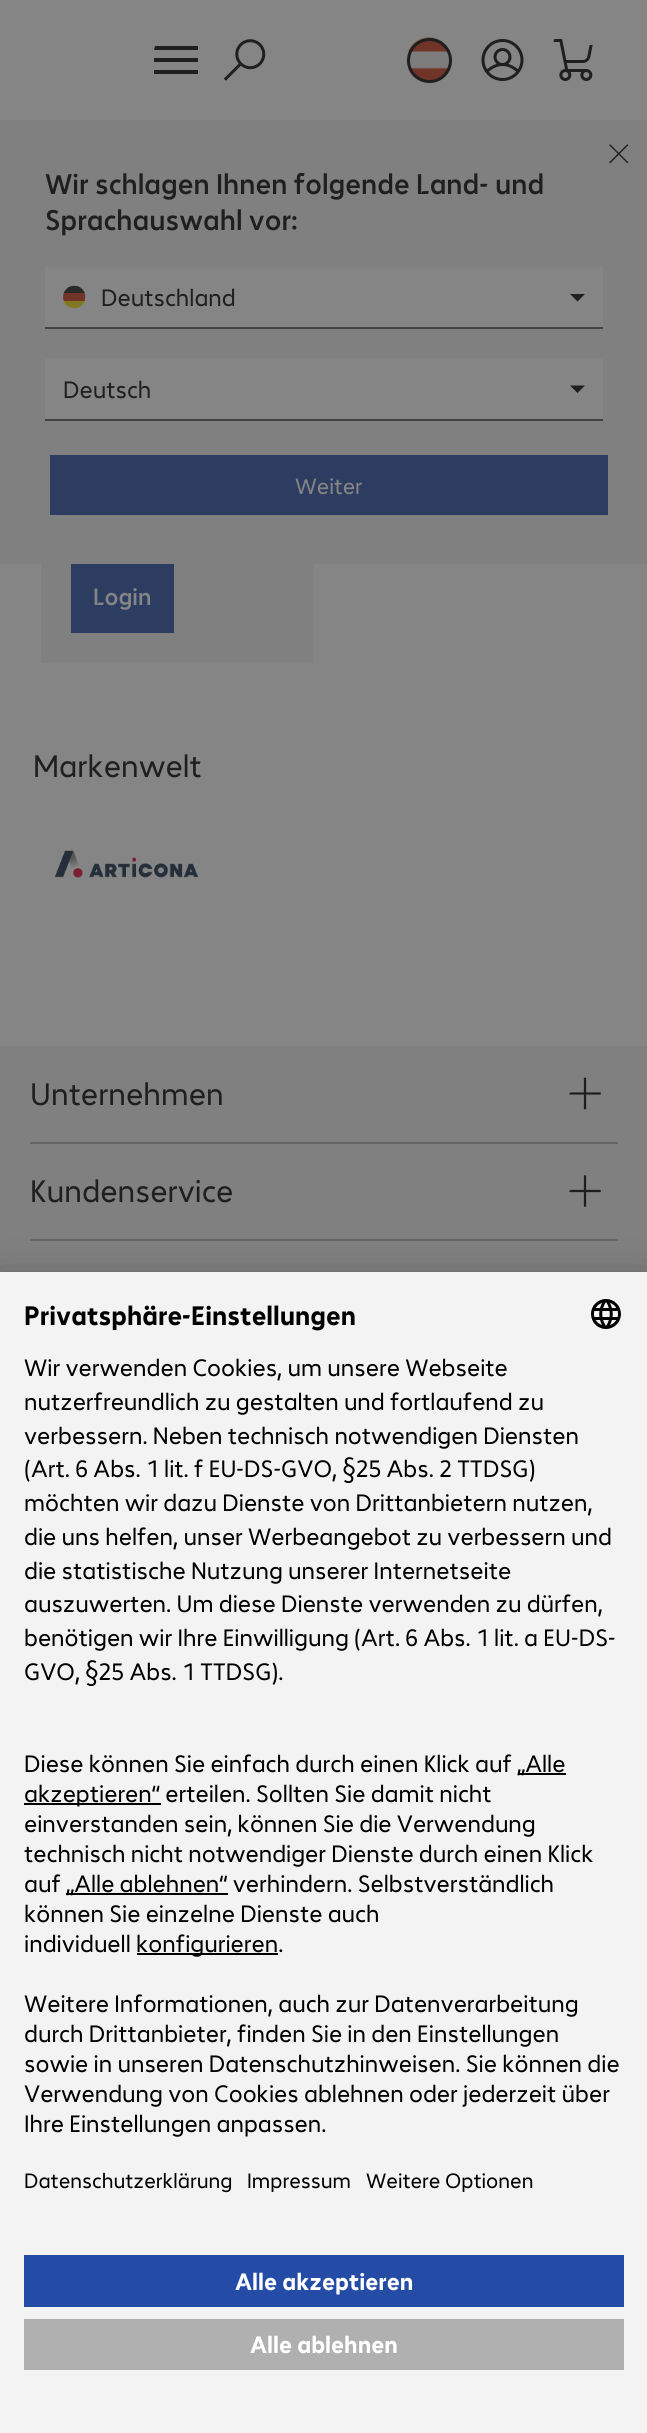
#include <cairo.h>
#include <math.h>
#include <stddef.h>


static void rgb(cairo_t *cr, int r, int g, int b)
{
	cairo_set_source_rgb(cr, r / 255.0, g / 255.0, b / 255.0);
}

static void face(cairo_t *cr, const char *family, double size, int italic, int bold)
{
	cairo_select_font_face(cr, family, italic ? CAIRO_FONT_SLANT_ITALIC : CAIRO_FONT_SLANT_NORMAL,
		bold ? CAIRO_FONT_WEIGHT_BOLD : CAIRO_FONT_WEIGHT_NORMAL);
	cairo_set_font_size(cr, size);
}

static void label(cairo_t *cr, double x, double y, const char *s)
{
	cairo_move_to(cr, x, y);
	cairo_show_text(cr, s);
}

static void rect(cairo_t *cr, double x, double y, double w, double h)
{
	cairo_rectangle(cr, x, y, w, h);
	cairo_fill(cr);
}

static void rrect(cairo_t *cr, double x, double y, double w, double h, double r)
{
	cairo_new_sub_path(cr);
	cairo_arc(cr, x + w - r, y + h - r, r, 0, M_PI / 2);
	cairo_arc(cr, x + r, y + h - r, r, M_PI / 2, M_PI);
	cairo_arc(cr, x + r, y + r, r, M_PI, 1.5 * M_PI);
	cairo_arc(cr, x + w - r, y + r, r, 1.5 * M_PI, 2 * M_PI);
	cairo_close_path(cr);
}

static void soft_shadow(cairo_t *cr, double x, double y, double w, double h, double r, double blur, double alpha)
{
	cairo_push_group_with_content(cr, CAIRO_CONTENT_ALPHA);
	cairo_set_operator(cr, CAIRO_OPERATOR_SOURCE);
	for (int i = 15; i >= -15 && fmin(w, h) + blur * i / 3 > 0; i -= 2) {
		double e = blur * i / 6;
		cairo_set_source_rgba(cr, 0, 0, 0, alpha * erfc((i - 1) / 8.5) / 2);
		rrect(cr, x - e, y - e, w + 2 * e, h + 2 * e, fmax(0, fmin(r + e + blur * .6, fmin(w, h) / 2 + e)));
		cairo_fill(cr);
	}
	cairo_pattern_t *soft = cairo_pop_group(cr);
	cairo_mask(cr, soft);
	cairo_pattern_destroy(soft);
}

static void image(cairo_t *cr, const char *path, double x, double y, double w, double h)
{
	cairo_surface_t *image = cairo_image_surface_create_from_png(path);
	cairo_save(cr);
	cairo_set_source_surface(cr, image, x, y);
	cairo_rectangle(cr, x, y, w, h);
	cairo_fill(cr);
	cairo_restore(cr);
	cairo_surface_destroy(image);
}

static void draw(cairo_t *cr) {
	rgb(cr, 133, 133, 133);
	cairo_paint(cr);
	rgb(cr, 31, 31, 31);
	rect(cr, 154, 70, 44, 4);
	rect(cr, 154, 58, 44, 4);
	cairo_new_path(cr);
	cairo_move_to(cr, 155, 46);
	cairo_line_to(cr, 198, 46);
	cairo_line_to(cr, 198, 50);
	cairo_line_to(cr, 154, 50);
	cairo_close_path(cr);
	cairo_fill(cr);
	image(cr, "image0.png", 223, 39, 43, 42);
	image(cr, "image1.png", 406, 37, 46, 46);
	cairo_arc(cr, 429.5, 60.5, 21, 0, 2 * M_PI);
	cairo_set_line_width(cr, 3);
	cairo_stroke(cr);
	image(cr, "image2.png", 481, 39, 43, 42);
	image(cr, "image3.png", 553, 39, 40, 42);
	rgb(cr, 128, 128, 128);
	rect(cr, 0, 120, 647, 444);
	image(cr, "image4.png", 609, 144, 20, 20);
	face(cr, "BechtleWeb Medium", 28.75, 0, 0);
	rgb(cr, 31, 31, 31);
	label(cr, 45, 194, "Wir schlagen Ihnen folgende Land- und");
	label(cr, 45, 230, "Sprachauswahl vor:");
	rgb(cr, 133, 133, 133);
	rect(cr, 45, 267, 558, 60);
	rgb(cr, 67, 67, 67);
	rect(cr, 45, 327, 558, 2);
	image(cr, "image5.png", 63, 285, 23, 24);
	face(cr, "BechtleWeb", 24, 0, 0);
	rgb(cr, 31, 31, 31);
	label(cr, 101, 306, "Deutschland");
	cairo_new_path(cr);
	cairo_move_to(cr, 570, 294);
	cairo_line_to(cr, 585, 294);
	cairo_line_to(cr, 577.5, 301.5);
	cairo_close_path(cr);
	cairo_fill(cr);
	rgb(cr, 133, 133, 133);
	rect(cr, 45, 359, 558, 60);
	rgb(cr, 67, 67, 67);
	rect(cr, 45, 419, 558, 2);
	rgb(cr, 31, 31, 31);
	label(cr, 63, 398, "Deutsch");
	cairo_new_path(cr);
	cairo_move_to(cr, 570, 385.5);
	cairo_line_to(cr, 585, 385.5);
	cairo_line_to(cr, 577.5, 393);
	cairo_close_path(cr);
	cairo_fill(cr);
	rgb(cr, 45, 61, 97);
	rect(cr, 50, 455, 558, 60);
	face(cr, "BechtleWeb", 22.5, 0, 0);
	rgb(cr, 133, 133, 133);
	label(cr, 295, 494, "Weiter");
	rgb(cr, 128, 128, 128);
	rect(cr, 41, 564, 273, 99);
	rgb(cr, 45, 61, 97);
	rect(cr, 71, 564, 103, 69);
	face(cr, "BechtleWeb Medium", 24, 0, 0);
	rgb(cr, 133, 133, 133);
	label(cr, 93, 605, "Login");
	face(cr, "BechtleWeb", 31.5, 0, 0);
	rgb(cr, 31, 31, 31);
	label(cr, 33, 777, "Markenwelt");
	image(cr, "image6.png", 54, 850, 145, 28);
	rgb(cr, 128, 128, 128);
	rect(cr, 0, 1046, 647, 226);
	rgb(cr, 31, 31, 31);
	label(cr, 30, 1105, "Unternehmen");
	image(cr, "image7.png", 569, 1077, 32, 33);
	rgb(cr, 101, 101, 101);
	rect(cr, 30, 1142, 588, 2);
	rgb(cr, 31, 31, 31);
	label(cr, 30, 1202, "Kundenservice");
	image(cr, "image8.png", 569, 1175, 32, 32);
	rgb(cr, 101, 101, 101);
	rect(cr, 30, 1239, 588, 2);
	rgb(cr, 0, 0, 0);
	soft_shadow(cr, 0, 1302, 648, 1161, 0, 21, 0.3);
	soft_shadow(cr, 0, 1280, 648, 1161, 0, 19.5, 0.22);
	rgb(cr, 243, 243, 243);
	rect(cr, 0, 1272, 647, 1161);
	face(cr, "BechtleWeb", 27, 0, 1);
	rgb(cr, 0, 0, 0);
	label(cr, 24, 1325, "Privatsphäre-Einstellungen");
	image(cr, "image9.png", 591, 1299, 30, 30);
	face(cr, "BechtleWeb", 24, 0, 0);
	label(cr, 24, 1376, "Wir verwenden Cookies, um unsere Webseite");
	label(cr, 24, 1410, "nutzerfreundlich zu gestalten und fortlaufend zu");
	label(cr, 24, 1444, "verbessern. Neben technisch notwendigen Diensten");
	label(cr, 24, 1477, "(Art. 6 Abs. 1 lit. f EU-DS-GVO, §25 Abs. 2 TTDSG)");
	label(cr, 24, 1511, "möchten wir dazu Dienste von Drittanbietern nutzen,");
	label(cr, 24, 1545, "die uns helfen, unser Werbeangebot zu verbessern und");
	label(cr, 24, 1579, "die statistische Nutzung unserer Internetseite");
	label(cr, 24, 1612, "auszuwerten. Um diese Dienste verwenden zu dürfen,");
	label(cr, 24, 1646, "benötigen wir Ihre Einwilligung (Art. 6 Abs. 1 lit. a EU-DS-");
	label(cr, 24, 1680, "GVO, §25 Abs. 1 TTDSG).");
	label(cr, 24, 1772, "Diese können Sie einfach durch einen Klick auf");
	rect(cr, 518, 1773, 48, 2);
	label(cr, 517, 1772, "„Alle");
	rect(cr, 24, 1803, 137, 2);
	label(cr, 24, 1802, "akzeptieren“ erteilen. Sollten Sie damit nicht");
	label(cr, 24, 1832, "einverstanden sein, können Sie die Verwendung");
	label(cr, 24, 1862, "technisch nicht notwendiger Dienste durch einen Klick");
	label(cr, 24, 1892, "auf");
	rect(cr, 66, 1893, 162, 2);
	label(cr, 66, 1892, "„Alle ablehnen“ verhindern. Selbstverständlich");
	label(cr, 24, 1922, "können Sie einzelne Dienste auch");
	label(cr, 24, 1952, "individuell");
	rect(cr, 137, 1953, 141, 2);
	label(cr, 136, 1952, "konfigurieren.");
	label(cr, 24, 2012, "Weitere Informationen, auch zur Datenverarbeitung");
	label(cr, 24, 2042, "durch Drittanbieter, finden Sie in den Einstellungen");
	label(cr, 24, 2072, "sowie in unseren Datenschutzhinweisen. Sie können die");
	label(cr, 24, 2102, "Verwendung von Cookies ablehnen oder jederzeit über");
	label(cr, 24, 2132, "Ihre Einstellungen anpassen.");
	face(cr, "BechtleWeb", 21, 0, 0);
	label(cr, 24, 2188, "Datenschutzerklärung");
	label(cr, 247, 2188, "Impressum");
	label(cr, 366, 2188, "Weitere Optionen");
	rgb(cr, 36, 76, 167);
	rect(cr, 24, 2255, 600, 52);
	face(cr, "BechtleWeb", 24, 0, 1);
	rgb(cr, 255, 255, 255);
	label(cr, 235, 2290, "Alle akzeptieren");
	rgb(cr, 176, 176, 176);
	rect(cr, 24, 2319, 600, 51);
	rgb(cr, 255, 255, 255);
	label(cr, 250, 2353, "Alle ablehnen");
}

int main(void) {
	cairo_surface_t *surface = cairo_image_surface_create(CAIRO_FORMAT_RGB24, 647, 2433);
	cairo_t *cr = cairo_create(surface);
	cairo_font_options_t *options = cairo_font_options_create();
	cairo_font_options_set_hint_metrics(options, CAIRO_HINT_METRICS_OFF);
	cairo_font_options_set_hint_style(options, CAIRO_HINT_STYLE_NONE);
	cairo_set_font_options(cr, options);
	cairo_set_miter_limit(cr, 4);
	draw(cr);
	cairo_surface_write_to_png(surface, "render.png");
	cairo_font_options_destroy(options);
	cairo_destroy(cr);
	cairo_surface_destroy(surface);
	return 0;
}
